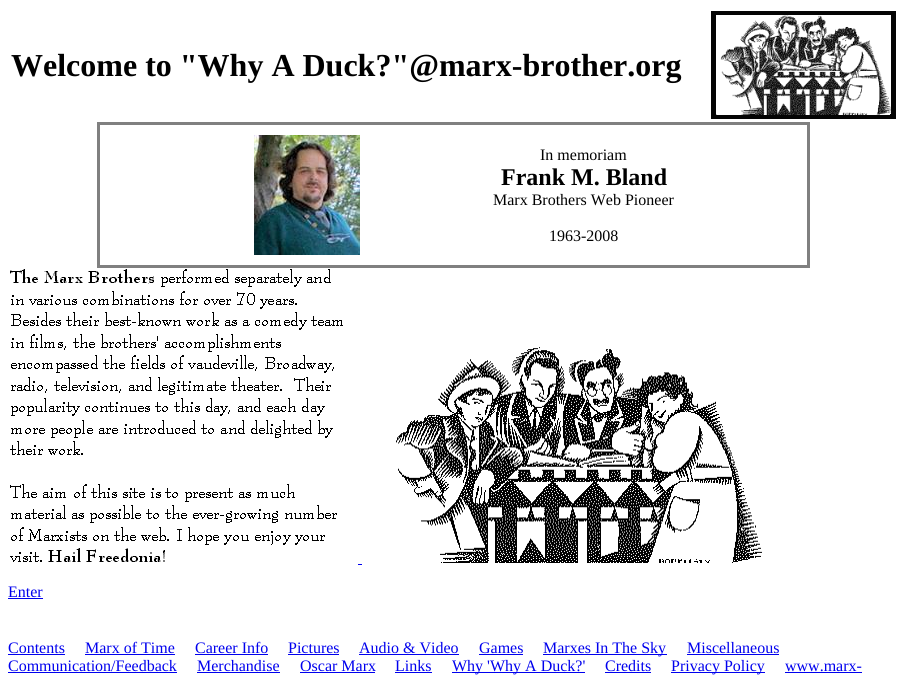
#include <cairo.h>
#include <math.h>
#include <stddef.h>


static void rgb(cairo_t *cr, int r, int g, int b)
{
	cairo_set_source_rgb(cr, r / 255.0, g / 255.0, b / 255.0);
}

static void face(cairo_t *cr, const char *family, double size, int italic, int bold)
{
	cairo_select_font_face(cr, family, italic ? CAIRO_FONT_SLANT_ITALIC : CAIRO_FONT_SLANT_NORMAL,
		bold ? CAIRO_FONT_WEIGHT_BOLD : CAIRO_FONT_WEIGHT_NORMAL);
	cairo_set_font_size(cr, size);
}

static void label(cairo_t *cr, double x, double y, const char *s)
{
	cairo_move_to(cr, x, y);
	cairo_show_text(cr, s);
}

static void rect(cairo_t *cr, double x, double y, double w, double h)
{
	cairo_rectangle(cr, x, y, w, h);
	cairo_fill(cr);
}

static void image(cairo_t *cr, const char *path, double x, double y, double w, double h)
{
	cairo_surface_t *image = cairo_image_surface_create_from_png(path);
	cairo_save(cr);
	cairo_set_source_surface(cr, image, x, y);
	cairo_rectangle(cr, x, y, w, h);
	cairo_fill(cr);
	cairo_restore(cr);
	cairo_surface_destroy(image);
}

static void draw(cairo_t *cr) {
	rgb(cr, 255, 255, 255);
	cairo_paint(cr);
	face(cr, "Liberation Serif", 32, 0, 1);
	rgb(cr, 0, 0, 0);
	label(cr, 11, 76, "Welcome to \"Why A Duck?\"@marx-brother.org");
	image(cr, "image0.png", 711, 11, 185, 108);
	cairo_rectangle(cr, 98.5, 123.5, 710, 143);
	rgb(cr, 128, 128, 128);
	cairo_set_line_width(cr, 3);
	cairo_stroke(cr);
	image(cr, "image1.png", 254, 135, 106, 120);
	face(cr, "Liberation Serif", 16, 0, 0);
	rgb(cr, 0, 0, 0);
	label(cr, 540, 160, "In memoriam");
	face(cr, "Liberation Serif", 24, 0, 1);
	label(cr, 501, 185, "Frank M. Bland");
	face(cr, "Liberation Serif", 16, 0, 0);
	label(cr, 493, 205, "Marx Brothers Web Pioneer");
	label(cr, 549, 241, "1963-2008");
	image(cr, "image2.png", 10, 269, 333, 293);
	image(cr, "image3.png", 396, 347, 366, 216);
	rgb(cr, 0, 0, 238);
	rect(cr, 358, 564, 4, 1);
	label(cr, 8, 597, "Enter");
	rect(cr, 8, 598, 35, 1);
	label(cr, 8, 653, "Contents");
	rect(cr, 8, 654, 57, 1);
	label(cr, 85, 653, "Marx of Time");
	rect(cr, 85, 654, 90, 1);
	label(cr, 195, 653, "Career Info");
	rect(cr, 195, 654, 73, 1);
	label(cr, 288, 653, "Pictures");
	rect(cr, 288, 654, 51, 1);
	label(cr, 359, 653, "Audio & Video");
	rect(cr, 359, 654, 100, 1);
	label(cr, 479, 653, "Games");
	rect(cr, 479, 654, 44, 1);
	rect(cr, 543, 654, 124, 1);
	label(cr, 543, 653, "Marxes In The Sky");
	label(cr, 687, 653, "Miscellaneous");
	rect(cr, 687, 654, 92, 1);
	label(cr, 8, 671, "Communication/Feedback");
	rect(cr, 8, 672, 169, 1);
	label(cr, 197, 671, "Merchandise");
	rect(cr, 197, 672, 83, 1);
	label(cr, 300, 671, "Oscar Marx");
	rect(cr, 300, 672, 75, 1);
	label(cr, 395, 671, "Links");
	rect(cr, 395, 672, 37, 1);
	rect(cr, 452, 672, 133, 1);
	label(cr, 452, 671, "Why 'Why A Duck?'");
	label(cr, 605, 671, "Credits");
	rect(cr, 605, 672, 46, 1);
	rect(cr, 671, 672, 94, 1);
	label(cr, 671, 671, "Privacy Policy");
	label(cr, 785, 671, "www.marx-");
	rect(cr, 785, 672, 77, 1);
}

int main(void) {
	cairo_surface_t *surface = cairo_image_surface_create(CAIRO_FORMAT_RGB24, 907, 677);
	cairo_t *cr = cairo_create(surface);
	cairo_font_options_t *options = cairo_font_options_create();
	cairo_font_options_set_hint_metrics(options, CAIRO_HINT_METRICS_OFF);
	cairo_font_options_set_hint_style(options, CAIRO_HINT_STYLE_NONE);
	cairo_set_font_options(cr, options);
	cairo_set_miter_limit(cr, 4);
	draw(cr);
	cairo_surface_write_to_png(surface, "render.png");
	cairo_font_options_destroy(options);
	cairo_destroy(cr);
	cairo_surface_destroy(surface);
	return 0;
}
